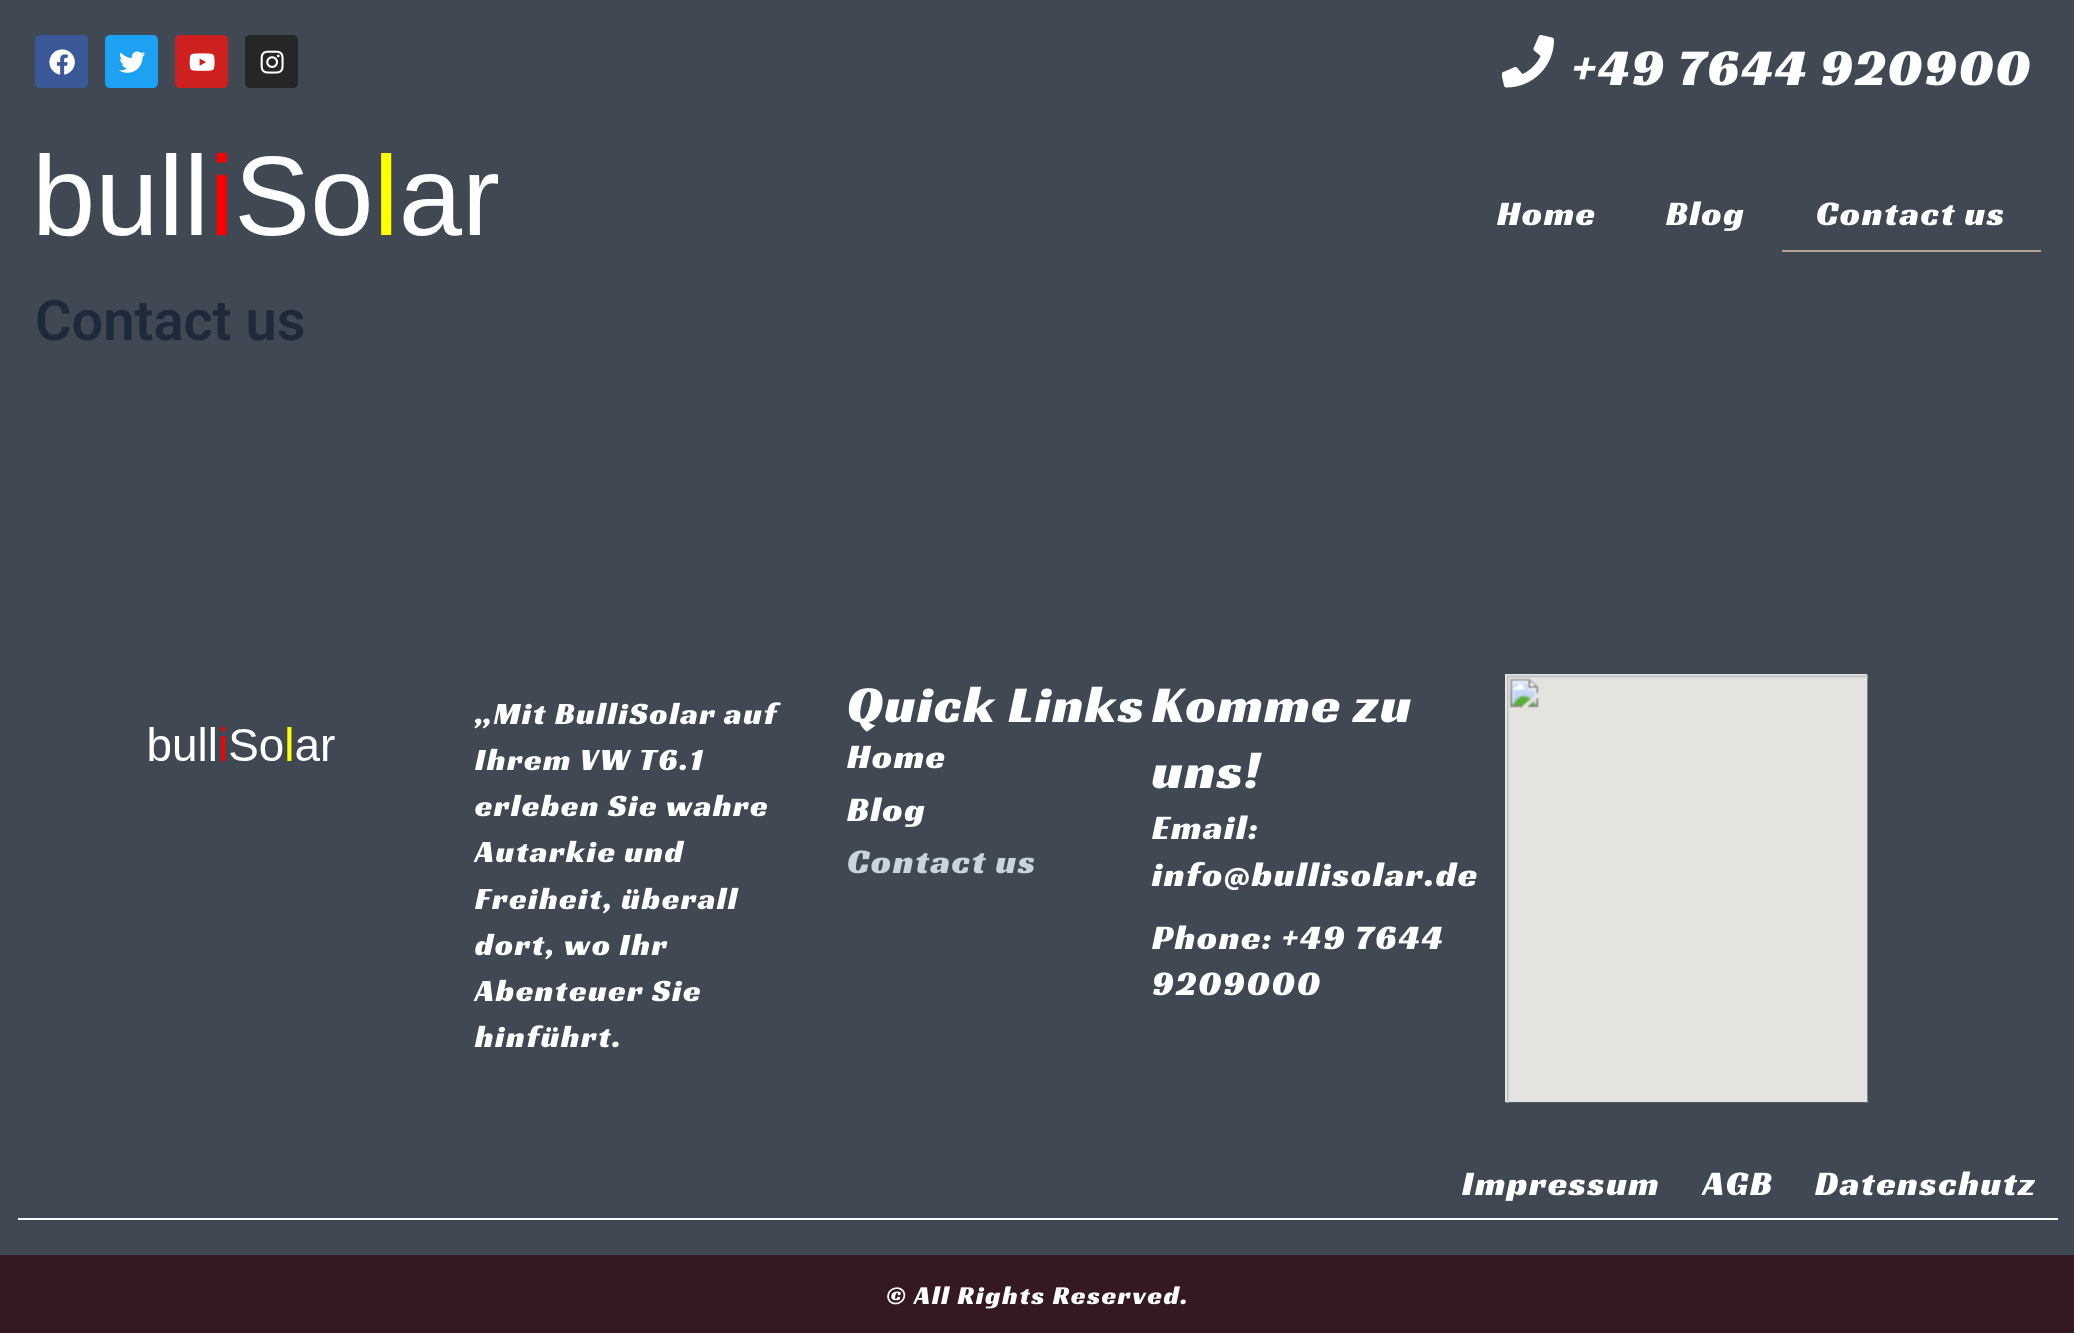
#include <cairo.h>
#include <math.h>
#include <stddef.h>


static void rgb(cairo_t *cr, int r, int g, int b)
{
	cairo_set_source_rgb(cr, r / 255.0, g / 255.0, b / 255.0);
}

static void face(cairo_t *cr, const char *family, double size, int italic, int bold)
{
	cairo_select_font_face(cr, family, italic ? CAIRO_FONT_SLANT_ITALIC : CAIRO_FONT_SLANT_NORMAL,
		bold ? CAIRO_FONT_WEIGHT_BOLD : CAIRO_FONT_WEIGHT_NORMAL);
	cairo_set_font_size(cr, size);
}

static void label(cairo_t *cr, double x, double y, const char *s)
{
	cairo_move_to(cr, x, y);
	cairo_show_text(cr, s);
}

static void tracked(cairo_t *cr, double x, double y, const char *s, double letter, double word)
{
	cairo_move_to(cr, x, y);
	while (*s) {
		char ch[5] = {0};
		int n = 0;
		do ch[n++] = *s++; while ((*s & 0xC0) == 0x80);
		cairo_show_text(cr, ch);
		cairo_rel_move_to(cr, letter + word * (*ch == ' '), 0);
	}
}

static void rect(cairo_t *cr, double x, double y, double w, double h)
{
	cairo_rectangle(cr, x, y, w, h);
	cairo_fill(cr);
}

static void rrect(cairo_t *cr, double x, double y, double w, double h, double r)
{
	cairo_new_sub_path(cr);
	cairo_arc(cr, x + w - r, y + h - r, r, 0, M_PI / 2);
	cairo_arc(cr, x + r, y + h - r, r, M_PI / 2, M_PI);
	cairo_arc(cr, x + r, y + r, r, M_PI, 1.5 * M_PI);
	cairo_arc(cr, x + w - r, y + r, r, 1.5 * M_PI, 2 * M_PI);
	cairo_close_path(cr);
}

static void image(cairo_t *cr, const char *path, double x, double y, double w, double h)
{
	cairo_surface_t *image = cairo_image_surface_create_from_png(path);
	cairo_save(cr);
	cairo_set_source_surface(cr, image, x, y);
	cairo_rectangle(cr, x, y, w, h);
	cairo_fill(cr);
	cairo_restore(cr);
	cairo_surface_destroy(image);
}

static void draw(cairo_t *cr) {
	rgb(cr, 64, 72, 83);
	cairo_paint(cr);
	rgb(cr, 59, 89, 152);
	rrect(cr, 35, 35, 53, 53, 5);
	cairo_fill(cr);
	image(cr, "image0.png", 49, 49, 26, 26);
	rgb(cr, 29, 161, 242);
	rrect(cr, 105, 35, 53, 53, 5);
	cairo_fill(cr);
	image(cr, "image1.png", 119, 51, 26, 22);
	rgb(cr, 205, 32, 31);
	rrect(cr, 175, 35, 53, 53, 5);
	cairo_fill(cr);
	image(cr, "image2.png", 189, 53, 26, 18);
	rgb(cr, 38, 38, 38);
	rrect(cr, 245, 35, 53, 53, 5);
	cairo_fill(cr);
	image(cr, "image3.png", 260, 50, 24, 24);
	image(cr, "image4.png", 1502, 35, 52, 53);
	face(cr, "Racing Sans One", 52.5, 0, 0);
	rgb(cr, 255, 255, 255);
	tracked(cr, 1572, 85, "+49 7644 920900", 1.75, 0);
	image(cr, "image5.png", 39, 153, 459, 84);
	face(cr, "Racing Sans One", 35, 0, 0);
	tracked(cr, 1497, 225, "Home", 1.75, 0);
	tracked(cr, 1666, 225, "Blog", 1.75, 0);
	tracked(cr, 1816, 225, "Contact us", 1.75, 0);
	rgb(cr, 182, 164, 144);
	rect(cr, 1782, 250, 259, 2);
	face(cr, "Roboto SemiBold", 56, 0, 0);
	rgb(cr, 30, 41, 59);
	label(cr, 35, 340, "Contact us");
	image(cr, "image6.png", 149, 727, 186, 34);
	face(cr, "Racing Sans One", 31.5, 0, 0);
	rgb(cr, 255, 255, 255);
	tracked(cr, 475, 724, "„Mit BulliSolar auf", 1.75, 0);
	tracked(cr, 475, 770, "Ihrem VW T6.1", 1.75, 0);
	tracked(cr, 475, 816, "erleben Sie wahre", 1.75, 0);
	tracked(cr, 475, 862, "Autarkie und", 1.75, 0);
	tracked(cr, 475, 909, "Freiheit, überall", 1.75, 0);
	tracked(cr, 475, 955, "dort, wo Ihr", 1.75, 0);
	tracked(cr, 475, 1001, "Abenteuer Sie", 1.75, 0);
	tracked(cr, 475, 1047, "hinführt.", 1.75, 0);
	face(cr, "Racing Sans One", 52.5, 0, 0);
	tracked(cr, 847, 722, "Quick Links", 1.75, 0);
	face(cr, "Racing Sans One", 35, 0, 0);
	tracked(cr, 847, 768, "Home", 1.75, 0);
	tracked(cr, 847, 821, "Blog", 1.75, 0);
	rgb(cr, 200, 213, 220);
	tracked(cr, 847, 873, "Contact us", 1.75, 0);
	face(cr, "Racing Sans One", 52.5, 0, 0);
	rgb(cr, 255, 255, 255);
	tracked(cr, 1152, 722, "Komme zu", 1.75, 0);
	tracked(cr, 1152, 788, "uns!", 1.75, 0);
	face(cr, "Racing Sans One", 35, 0, 0);
	tracked(cr, 1152, 839, "Email:", 1.75, 0);
	tracked(cr, 1152, 886, "info@bullisolar.de", 1.75, 0);
	tracked(cr, 1152, 949, "Phone: +49 7644", 1.75, 0);
	tracked(cr, 1152, 995, "9209000", 1.75, 0);
	image(cr, "image7.png", 1505, 674, 363, 429);
	tracked(cr, 1462, 1195, "Impressum", 1.75, 0);
	tracked(cr, 1703, 1195, "AGB", 1.75, 0);
	tracked(cr, 1815, 1195, "Datenschutz", 1.75, 0);
	rect(cr, 18, 1218, 2040, 2);
	rgb(cr, 52, 25, 34);
	rect(cr, 0, 1255, 2074, 78);
	face(cr, "Racing Sans One", 26.25, 0, 0);
	rgb(cr, 255, 255, 255);
	tracked(cr, 886, 1304, "© All Rights Reserved.", 1.75, 0);
}

int main(void) {
	cairo_surface_t *surface = cairo_image_surface_create(CAIRO_FORMAT_RGB24, 2074, 1333);
	cairo_t *cr = cairo_create(surface);
	cairo_font_options_t *options = cairo_font_options_create();
	cairo_font_options_set_hint_metrics(options, CAIRO_HINT_METRICS_OFF);
	cairo_font_options_set_hint_style(options, CAIRO_HINT_STYLE_NONE);
	cairo_set_font_options(cr, options);
	cairo_set_miter_limit(cr, 4);
	draw(cr);
	cairo_surface_write_to_png(surface, "render.png");
	cairo_font_options_destroy(options);
	cairo_destroy(cr);
	cairo_surface_destroy(surface);
	return 0;
}
